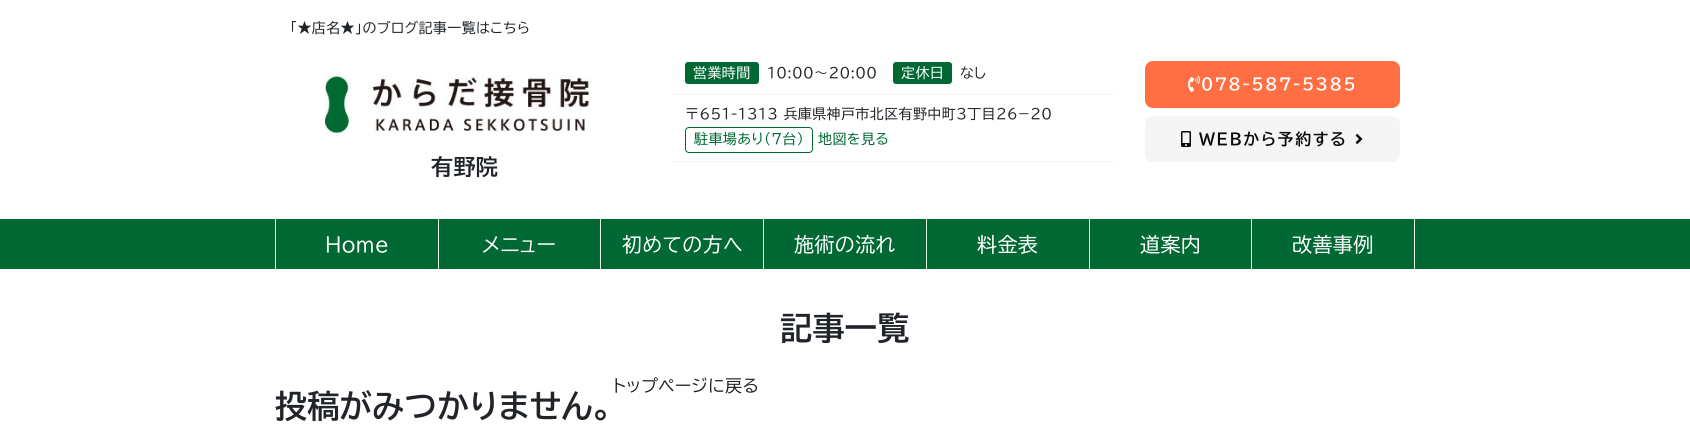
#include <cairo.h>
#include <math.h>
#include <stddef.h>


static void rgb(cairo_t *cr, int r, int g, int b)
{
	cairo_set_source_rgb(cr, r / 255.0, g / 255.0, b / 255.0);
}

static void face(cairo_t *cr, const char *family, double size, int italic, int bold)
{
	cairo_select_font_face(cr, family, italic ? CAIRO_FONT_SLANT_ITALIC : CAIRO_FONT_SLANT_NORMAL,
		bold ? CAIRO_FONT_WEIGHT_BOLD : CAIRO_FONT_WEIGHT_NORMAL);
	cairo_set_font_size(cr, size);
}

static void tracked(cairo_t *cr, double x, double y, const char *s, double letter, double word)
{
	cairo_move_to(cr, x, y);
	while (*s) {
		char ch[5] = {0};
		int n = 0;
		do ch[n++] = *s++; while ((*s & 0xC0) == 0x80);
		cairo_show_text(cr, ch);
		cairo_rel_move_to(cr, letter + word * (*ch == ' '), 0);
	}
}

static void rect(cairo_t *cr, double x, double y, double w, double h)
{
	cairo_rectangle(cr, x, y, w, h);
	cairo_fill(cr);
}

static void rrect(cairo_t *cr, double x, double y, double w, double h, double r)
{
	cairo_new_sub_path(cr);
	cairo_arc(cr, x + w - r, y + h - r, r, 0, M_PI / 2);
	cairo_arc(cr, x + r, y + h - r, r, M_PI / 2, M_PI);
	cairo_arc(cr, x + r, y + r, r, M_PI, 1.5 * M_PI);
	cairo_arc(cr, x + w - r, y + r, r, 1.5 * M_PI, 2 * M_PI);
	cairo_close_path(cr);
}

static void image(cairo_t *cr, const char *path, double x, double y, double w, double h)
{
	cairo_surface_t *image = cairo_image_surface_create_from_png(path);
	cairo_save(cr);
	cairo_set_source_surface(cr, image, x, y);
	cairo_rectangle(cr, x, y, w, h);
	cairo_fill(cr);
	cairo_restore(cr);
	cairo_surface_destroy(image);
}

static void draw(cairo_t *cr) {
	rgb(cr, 255, 255, 255);
	cairo_paint(cr);
	face(cr, "BIZ UDPGothic", 14, 0, 0);
	rgb(cr, 33, 37, 41);
	tracked(cr, 290, 33, "「★店名★」のブログ記事一覧はこちら", 0.4, 0);
	rgb(cr, 245, 245, 245);
	rect(cr, 670, 94, 445, 1);
	rgb(cr, 0, 105, 51);
	rrect(cr, 685, 62, 74, 22, 3);
	cairo_fill(cr);
	rgb(cr, 255, 255, 255);
	tracked(cr, 693, 78, "営業時間", 0.4, 0);
	rgb(cr, 33, 37, 41);
	tracked(cr, 767, 78, "10:00～20:00", 0.4, 0);
	rgb(cr, 0, 105, 51);
	rrect(cr, 893, 62, 59, 22, 3);
	cairo_fill(cr);
	rgb(cr, 255, 255, 255);
	tracked(cr, 901, 78, "定休日", 0.4, 0);
	rgb(cr, 33, 37, 41);
	tracked(cr, 960, 78, "なし", 0.4, 0);
	rgb(cr, 245, 245, 245);
	rect(cr, 670, 161, 445, 1);
	rgb(cr, 33, 37, 41);
	tracked(cr, 685, 119, "〒651-1313 兵庫県神戸市北区有野中町３丁目２６−２０", 0.4, 0);
	rrect(cr, 685.5, 127.5, 127, 25, 3.5);
	rgb(cr, 0, 105, 51);
	cairo_set_line_width(cr, 1);
	cairo_stroke(cr);
	tracked(cr, 694, 144, "駐車場あり(7台)", 0.4, 0);
	tracked(cr, 818, 144, "地図を見る", 0.4, 0);
	rgb(cr, 255, 111, 67);
	rrect(cr, 1145, 61, 255, 47, 8);
	cairo_fill(cr);
	image(cr, "image0.png", 1188, 76, 12, 16);
	face(cr, "BIZ UDPGothic", 16, 0, 1);
	rgb(cr, 255, 255, 255);
	tracked(cr, 1201, 90, "078-587-5385", 1.6, 0);
	rgb(cr, 245, 245, 245);
	rrect(cr, 1145, 116, 255, 46, 8);
	cairo_fill(cr);
	image(cr, "image1.png", 1181, 131, 10, 16);
	rgb(cr, 10, 10, 10);
	tracked(cr, 1199, 145, "WEBから予約する", 1.6, 0);
	image(cr, "image2.png", 1355, 134, 8, 10);
	image(cr, "image3.png", 325, 75, 266, 62);
	face(cr, "BIZ UDPGothic", 22, 0, 1);
	rgb(cr, 33, 37, 41);
	tracked(cr, 431, 175, "有野院", 0.4, 0);
	rgb(cr, 0, 105, 51);
	rect(cr, 0, 219, 1690, 50);
	rgb(cr, 231, 247, 236);
	rect(cr, 438, 219, 1, 50);
	rect(cr, 275, 219, 1, 50);
	face(cr, "BIZ UDPGothic", 20, 0, 0);
	rgb(cr, 255, 255, 255);
	tracked(cr, 325, 252, "Home", 0.4, 0);
	rgb(cr, 231, 247, 236);
	rect(cr, 600, 219, 1, 50);
	rgb(cr, 255, 255, 255);
	tracked(cr, 482, 252, "メニュー", 0.4, 0);
	rgb(cr, 231, 247, 236);
	rect(cr, 763, 219, 1, 50);
	rgb(cr, 255, 255, 255);
	tracked(cr, 622, 252, "初めての方へ", 0.4, 0);
	rgb(cr, 231, 247, 236);
	rect(cr, 926, 219, 1, 50);
	rgb(cr, 255, 255, 255);
	tracked(cr, 794, 252, "施術の流れ", 0.4, 0);
	rgb(cr, 231, 247, 236);
	rect(cr, 1089, 219, 1, 50);
	rgb(cr, 255, 255, 255);
	tracked(cr, 977, 252, "料金表", 0.4, 0);
	rgb(cr, 231, 247, 236);
	rect(cr, 1251, 219, 1, 50);
	rgb(cr, 255, 255, 255);
	tracked(cr, 1140, 252, "道案内", 0.4, 0);
	rgb(cr, 231, 247, 236);
	rect(cr, 1414, 219, 1, 50);
	rgb(cr, 255, 255, 255);
	tracked(cr, 1292, 252, "改善事例", 0.4, 0);
	face(cr, "BIZ UDPGothic", 32, 0, 1);
	rgb(cr, 33, 37, 41);
	tracked(cr, 780, 340, "記事一覧", 0.4, 0);
	face(cr, "BIZ UDPGothic", 17, 0, 0);
	rgb(cr, 33, 33, 33);
	tracked(cr, 613, 392, "トップページに戻る", 0.4, 0);
	face(cr, "BIZ UDPGothic", 32, 0, 1);
	rgb(cr, 33, 37, 41);
	tracked(cr, 275, 418, "投稿がみつかりません。", 0.4, 0);
}

int main(void) {
	cairo_surface_t *surface = cairo_image_surface_create(CAIRO_FORMAT_RGB24, 1690, 425);
	cairo_t *cr = cairo_create(surface);
	cairo_font_options_t *options = cairo_font_options_create();
	cairo_font_options_set_hint_metrics(options, CAIRO_HINT_METRICS_OFF);
	cairo_font_options_set_hint_style(options, CAIRO_HINT_STYLE_NONE);
	cairo_set_font_options(cr, options);
	cairo_set_miter_limit(cr, 4);
	draw(cr);
	cairo_surface_write_to_png(surface, "render.png");
	cairo_font_options_destroy(options);
	cairo_destroy(cr);
	cairo_surface_destroy(surface);
	return 0;
}
